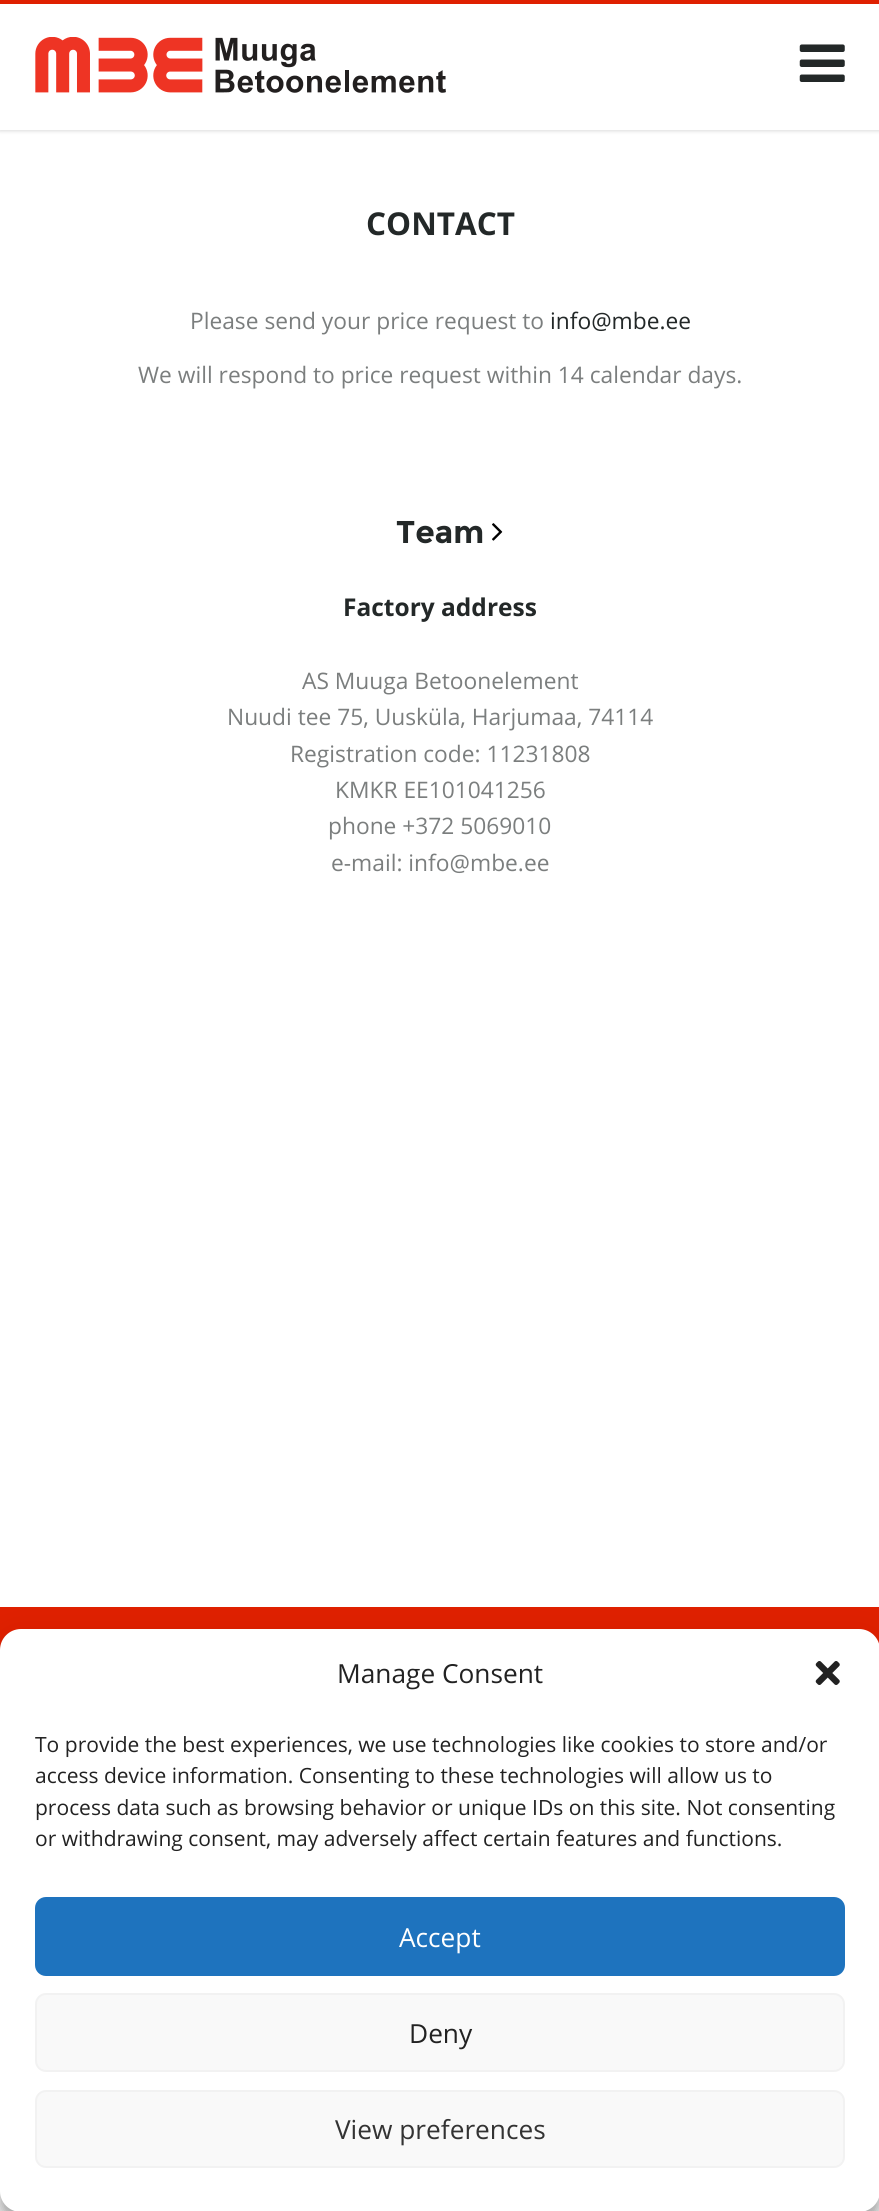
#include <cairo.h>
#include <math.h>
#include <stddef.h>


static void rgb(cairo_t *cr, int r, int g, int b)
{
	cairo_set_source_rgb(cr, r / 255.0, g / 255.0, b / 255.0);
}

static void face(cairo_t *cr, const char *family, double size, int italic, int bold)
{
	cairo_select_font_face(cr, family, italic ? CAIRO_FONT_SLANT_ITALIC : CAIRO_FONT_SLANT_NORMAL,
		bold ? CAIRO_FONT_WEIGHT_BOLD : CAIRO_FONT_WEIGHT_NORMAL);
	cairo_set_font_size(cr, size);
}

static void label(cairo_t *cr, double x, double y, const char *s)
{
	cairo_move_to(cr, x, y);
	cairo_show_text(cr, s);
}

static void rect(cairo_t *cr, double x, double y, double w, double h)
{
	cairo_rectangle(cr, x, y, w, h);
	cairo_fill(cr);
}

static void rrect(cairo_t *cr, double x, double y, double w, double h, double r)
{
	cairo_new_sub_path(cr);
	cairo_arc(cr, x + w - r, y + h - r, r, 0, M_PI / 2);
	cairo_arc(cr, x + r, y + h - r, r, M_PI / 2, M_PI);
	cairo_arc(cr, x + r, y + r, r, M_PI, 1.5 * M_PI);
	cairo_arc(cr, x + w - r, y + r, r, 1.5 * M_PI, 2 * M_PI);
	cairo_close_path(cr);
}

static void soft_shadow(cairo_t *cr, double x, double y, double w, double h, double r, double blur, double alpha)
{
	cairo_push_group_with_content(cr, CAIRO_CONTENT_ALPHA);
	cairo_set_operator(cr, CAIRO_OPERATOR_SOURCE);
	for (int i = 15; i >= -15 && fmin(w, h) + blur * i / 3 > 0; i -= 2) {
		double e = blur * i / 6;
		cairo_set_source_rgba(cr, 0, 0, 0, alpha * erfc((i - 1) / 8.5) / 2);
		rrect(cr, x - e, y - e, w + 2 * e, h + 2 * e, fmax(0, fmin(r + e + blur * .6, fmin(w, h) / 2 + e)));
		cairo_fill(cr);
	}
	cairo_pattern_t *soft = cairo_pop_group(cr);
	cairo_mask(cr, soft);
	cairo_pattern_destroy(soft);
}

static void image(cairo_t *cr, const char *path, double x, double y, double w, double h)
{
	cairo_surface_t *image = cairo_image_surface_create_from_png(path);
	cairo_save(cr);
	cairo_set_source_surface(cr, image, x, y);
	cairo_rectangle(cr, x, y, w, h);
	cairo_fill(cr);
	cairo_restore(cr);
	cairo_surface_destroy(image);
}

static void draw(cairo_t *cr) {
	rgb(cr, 255, 255, 255);
	cairo_paint(cr);
	rgb(cr, 0, 0, 0);
	soft_shadow(cr, 0, 2, 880, 129, 0, 2, 0.15);
	rgb(cr, 255, 255, 255);
	rect(cr, 0, 4, 879, 126);
	rgb(cr, 223, 32, 0);
	rect(cr, 0, 0, 879, 4);
	image(cr, "image0.png", 35, 37, 411, 56);
	image(cr, "image1.png", 799, 44, 46, 38);
	face(cr, "Open Sans", 31.5, 0, 1);
	rgb(cr, 35, 40, 40);
	label(cr, 366, 235, "CONTACT");
	face(cr, "Open Sans", 22.75, 0, 0);
	rgb(cr, 123, 126, 126);
	label(cr, 190, 329, "Please send your price request to");
	rgb(cr, 35, 40, 40);
	label(cr, 550, 329, "info@mbe.ee");
	rgb(cr, 123, 126, 126);
	label(cr, 138, 383, "We will respond to price request within 14 calendar days.");
	face(cr, "Montserrat", 31.5, 0, 1);
	rgb(cr, 35, 40, 40);
	label(cr, 396, 543, "Team");
	image(cr, "image2.png", 492, 523, 11, 18);
	face(cr, "Open Sans", 24.5, 0, 1);
	label(cr, 343, 616, "Factory address");
	face(cr, "Open Sans", 22.75, 0, 0);
	rgb(cr, 123, 126, 126);
	label(cr, 302, 689, "AS Muuga Betoonelement");
	label(cr, 227, 725, "Nuudi tee 75, Uusküla, Harjumaa, 74114");
	label(cr, 290, 762, "Registration code: 11231808");
	label(cr, 335, 798, "KMKR EE101041256");
	label(cr, 328, 834, "phone +372 5069010");
	label(cr, 331, 871, "e-mail: info@mbe.ee");
	rgb(cr, 223, 32, 0);
	rect(cr, 0, 1607, 879, 43);
	rgb(cr, 0, 0, 0);
	soft_shadow(cr, 0, 1640, 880, 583, 21, 5, 0.23);
	soft_shadow(cr, 0, 1647, 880, 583, 21, 17.5, 0.19);
	rgb(cr, 255, 255, 255);
	rrect(cr, 0, 1629, 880, 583, 21);
	cairo_fill(cr);
	face(cr, "Open Sans", 26.25, 0, 0);
	rgb(cr, 34, 34, 34);
	label(cr, 337, 1683, "Manage Consent");
	image(cr, "image3.png", 815, 1661, 25, 24);
	face(cr, "Open Sans", 21, 0, 0);
	label(cr, 35, 1752, "To provide the best experiences, we use technologies like cookies to store and/or");
	label(cr, 35, 1783, "access device information. Consenting to these technologies will allow us to");
	label(cr, 35, 1815, "process data such as browsing behavior or unique IDs on this site. Not consenting");
	label(cr, 35, 1846, "or withdrawing consent, may adversely affect certain features and functions.");
	rgb(cr, 30, 115, 190);
	rrect(cr, 36, 1898, 808, 77, 10);
	cairo_fill_preserve(cr);
	cairo_stroke(cr);
	face(cr, "Open Sans", 26.25, 0, 0);
	rgb(cr, 255, 255, 255);
	label(cr, 399, 1947, "Accept");
	rgb(cr, 249, 249, 249);
	rrect(cr, 36, 1994, 808, 77, 10);
	cairo_fill_preserve(cr);
	rgb(cr, 242, 242, 242);
	cairo_stroke(cr);
	rgb(cr, 34, 34, 34);
	label(cr, 409, 2043, "Deny");
	rgb(cr, 249, 249, 249);
	rrect(cr, 36, 2091, 808, 76, 10);
	cairo_fill_preserve(cr);
	rgb(cr, 242, 242, 242);
	cairo_stroke(cr);
	rgb(cr, 51, 51, 51);
	label(cr, 335, 2139, "View preferences");
}

int main(void) {
	cairo_surface_t *surface = cairo_image_surface_create(CAIRO_FORMAT_RGB24, 879, 2211);
	cairo_t *cr = cairo_create(surface);
	cairo_font_options_t *options = cairo_font_options_create();
	cairo_font_options_set_hint_metrics(options, CAIRO_HINT_METRICS_OFF);
	cairo_font_options_set_hint_style(options, CAIRO_HINT_STYLE_NONE);
	cairo_set_font_options(cr, options);
	cairo_set_miter_limit(cr, 4);
	draw(cr);
	cairo_surface_write_to_png(surface, "render.png");
	cairo_font_options_destroy(options);
	cairo_destroy(cr);
	cairo_surface_destroy(surface);
	return 0;
}
